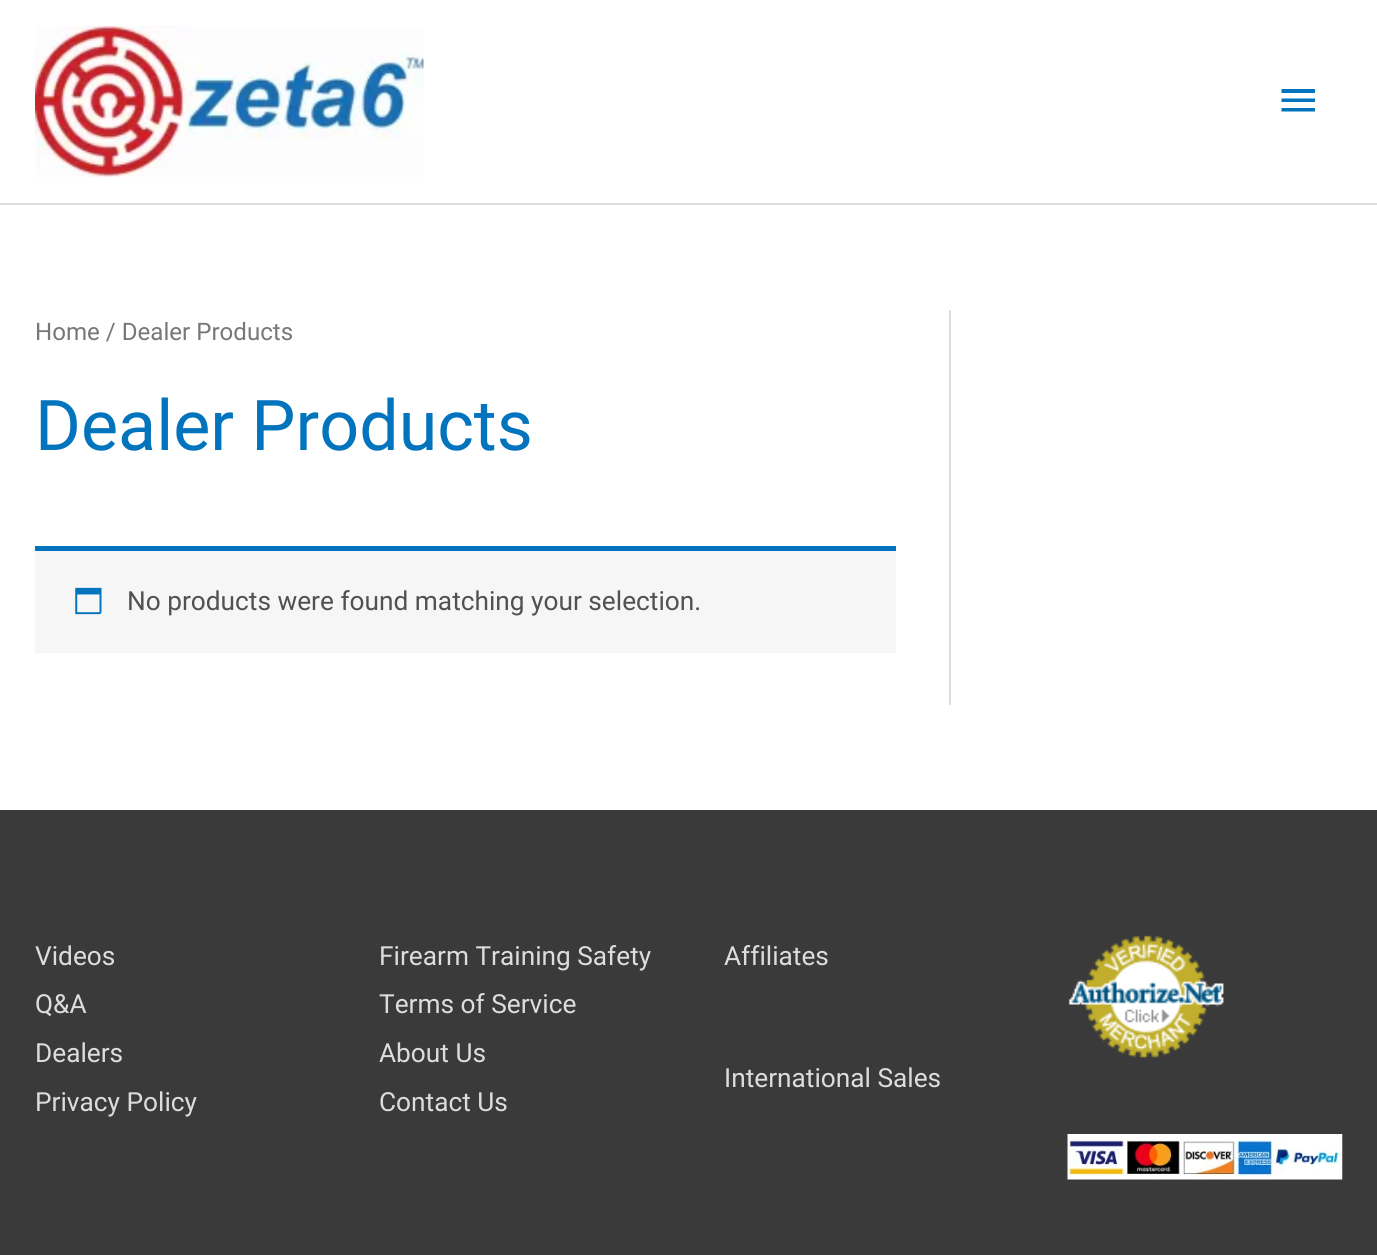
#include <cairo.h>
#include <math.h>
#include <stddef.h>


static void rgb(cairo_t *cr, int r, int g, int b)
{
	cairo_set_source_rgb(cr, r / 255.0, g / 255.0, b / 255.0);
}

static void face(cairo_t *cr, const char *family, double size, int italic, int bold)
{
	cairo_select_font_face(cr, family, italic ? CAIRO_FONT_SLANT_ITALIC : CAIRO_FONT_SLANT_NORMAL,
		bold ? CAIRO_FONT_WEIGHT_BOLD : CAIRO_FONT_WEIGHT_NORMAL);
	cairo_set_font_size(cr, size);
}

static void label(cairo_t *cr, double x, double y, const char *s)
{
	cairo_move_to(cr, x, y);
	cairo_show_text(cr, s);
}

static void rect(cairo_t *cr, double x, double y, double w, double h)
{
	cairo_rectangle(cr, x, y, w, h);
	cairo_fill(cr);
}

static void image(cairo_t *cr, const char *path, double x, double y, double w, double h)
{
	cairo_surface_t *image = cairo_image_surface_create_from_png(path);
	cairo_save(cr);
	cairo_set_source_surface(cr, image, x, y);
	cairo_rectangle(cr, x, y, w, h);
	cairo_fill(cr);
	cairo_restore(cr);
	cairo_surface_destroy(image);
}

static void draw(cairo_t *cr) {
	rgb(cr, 255, 255, 255);
	cairo_paint(cr);
	rgb(cr, 221, 221, 221);
	rect(cr, 0, 203, 1377, 2);
	image(cr, "image0.png", 35, 26, 389, 151);
	rgb(cr, 2, 116, 190);
	cairo_new_path(cr);
	cairo_move_to(cr, 1281.5, 89);
	cairo_line_to(cr, 1315, 89);
	cairo_line_to(cr, 1315, 93);
	cairo_line_to(cr, 1281.5, 93);
	cairo_close_path(cr);
	cairo_move_to(cr, 1281.5, 102);
	cairo_line_to(cr, 1281.5, 98.5);
	cairo_line_to(cr, 1315, 98.5);
	cairo_line_to(cr, 1315, 102);
	cairo_close_path(cr);
	cairo_move_to(cr, 1281.5, 111.5);
	cairo_line_to(cr, 1281.5, 108);
	cairo_line_to(cr, 1315, 108);
	cairo_line_to(cr, 1315, 111.5);
	cairo_close_path(cr);
	cairo_fill(cr);
	rgb(cr, 221, 221, 221);
	rect(cr, 949, 310, 2, 395);
	face(cr, "Roboto", 24.1, 0, 0);
	rgb(cr, 119, 119, 119);
	label(cr, 35, 340, "Home / Dealer Products");
	face(cr, "Roboto", 70, 0, 0);
	rgb(cr, 2, 116, 190);
	label(cr, 35, 450, "Dealer Products");
	rgb(cr, 247, 246, 247);
	rect(cr, 35, 551, 861, 102);
	rgb(cr, 2, 116, 190);
	rect(cr, 35, 546, 861, 5);
	image(cr, "image1.png", 75, 587, 27, 28);
	face(cr, "Roboto", 26.25, 0, 0);
	rgb(cr, 81, 81, 81);
	label(cr, 127, 610, "No products were found matching your selection.");
	rgb(cr, 58, 58, 58);
	rect(cr, 0, 810, 1377, 445);
	rgb(cr, 221, 221, 221);
	label(cr, 35, 965, "Videos");
	label(cr, 35, 1013, "Q&A");
	label(cr, 35, 1062, "Dealers");
	label(cr, 35, 1111, "Privacy Policy");
	label(cr, 379, 965, "Firearm Training Safety");
	label(cr, 379, 1013, "Terms of Service");
	label(cr, 379, 1062, "About Us");
	label(cr, 379, 1111, "Contact Us");
	label(cr, 724, 965, "Affiliates");
	label(cr, 724, 1087, "International Sales");
	image(cr, "image2.png", 1068, 935, 156, 123);
	image(cr, "image3.png", 1067, 1134, 276, 46);
}

int main(void) {
	cairo_surface_t *surface = cairo_image_surface_create(CAIRO_FORMAT_RGB24, 1377, 1255);
	cairo_t *cr = cairo_create(surface);
	cairo_font_options_t *options = cairo_font_options_create();
	cairo_font_options_set_hint_metrics(options, CAIRO_HINT_METRICS_OFF);
	cairo_font_options_set_hint_style(options, CAIRO_HINT_STYLE_NONE);
	cairo_set_font_options(cr, options);
	cairo_set_miter_limit(cr, 4);
	draw(cr);
	cairo_surface_write_to_png(surface, "render.png");
	cairo_font_options_destroy(options);
	cairo_destroy(cr);
	cairo_surface_destroy(surface);
	return 0;
}
